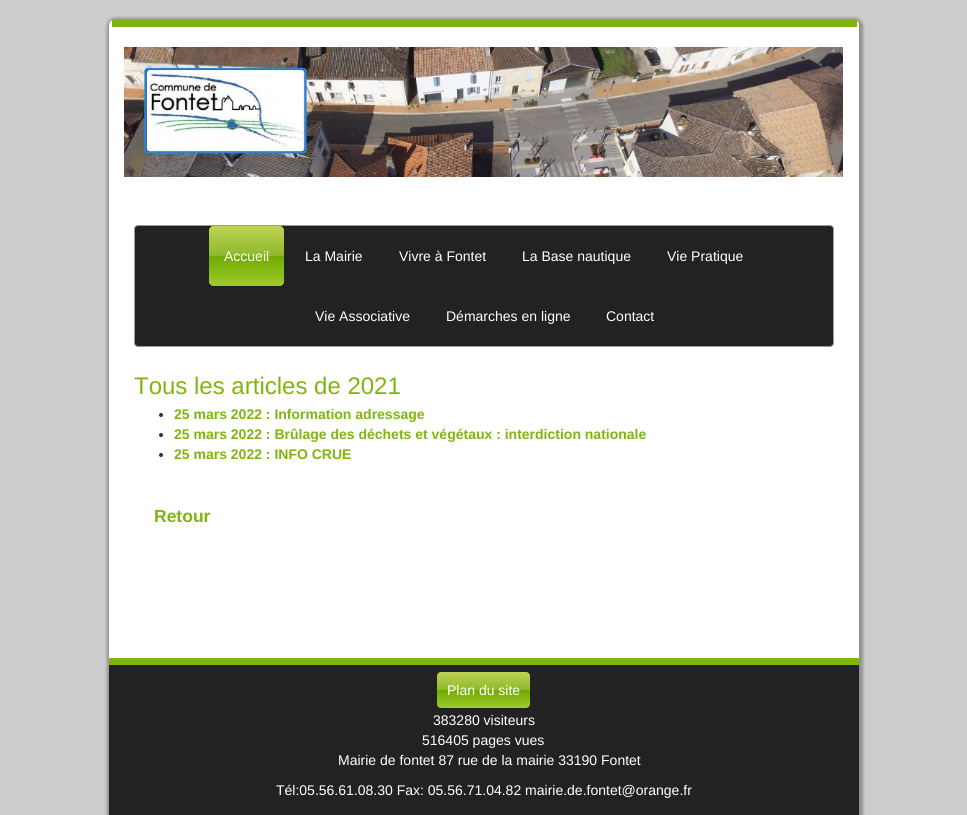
#include <cairo.h>
#include <math.h>
#include <stddef.h>


static void rgb(cairo_t *cr, int r, int g, int b)
{
	cairo_set_source_rgb(cr, r / 255.0, g / 255.0, b / 255.0);
}

static void face(cairo_t *cr, const char *family, double size, int italic, int bold)
{
	cairo_select_font_face(cr, family, italic ? CAIRO_FONT_SLANT_ITALIC : CAIRO_FONT_SLANT_NORMAL,
		bold ? CAIRO_FONT_WEIGHT_BOLD : CAIRO_FONT_WEIGHT_NORMAL);
	cairo_set_font_size(cr, size);
}

static void label(cairo_t *cr, double x, double y, const char *s)
{
	cairo_move_to(cr, x, y);
	cairo_show_text(cr, s);
}

static void rect(cairo_t *cr, double x, double y, double w, double h)
{
	cairo_rectangle(cr, x, y, w, h);
	cairo_fill(cr);
}

static void rrect(cairo_t *cr, double x, double y, double w, double h, double r)
{
	cairo_new_sub_path(cr);
	cairo_arc(cr, x + w - r, y + h - r, r, 0, M_PI / 2);
	cairo_arc(cr, x + r, y + h - r, r, M_PI / 2, M_PI);
	cairo_arc(cr, x + r, y + r, r, M_PI, 1.5 * M_PI);
	cairo_arc(cr, x + w - r, y + r, r, 1.5 * M_PI, 2 * M_PI);
	cairo_close_path(cr);
}

static void soft_shadow(cairo_t *cr, double x, double y, double w, double h, double r, double blur, double alpha)
{
	cairo_push_group_with_content(cr, CAIRO_CONTENT_ALPHA);
	cairo_set_operator(cr, CAIRO_OPERATOR_SOURCE);
	for (int i = 15; i >= -15 && fmin(w, h) + blur * i / 3 > 0; i -= 2) {
		double e = blur * i / 6;
		cairo_set_source_rgba(cr, 0, 0, 0, alpha * erfc((i - 1) / 8.5) / 2);
		rrect(cr, x - e, y - e, w + 2 * e, h + 2 * e, fmax(0, fmin(r + e + blur * .6, fmin(w, h) / 2 + e)));
		cairo_fill(cr);
	}
	cairo_pattern_t *soft = cairo_pop_group(cr);
	cairo_mask(cr, soft);
	cairo_pattern_destroy(soft);
}

static void image(cairo_t *cr, const char *path, double x, double y, double w, double h)
{
	cairo_surface_t *image = cairo_image_surface_create_from_png(path);
	cairo_save(cr);
	cairo_set_source_surface(cr, image, x, y);
	cairo_rectangle(cr, x, y, w, h);
	cairo_fill(cr);
	cairo_restore(cr);
	cairo_surface_destroy(image);
}

static void draw(cairo_t *cr) {
	cairo_pattern_t *gradient;
	rgb(cr, 204, 204, 204);
	cairo_paint(cr);
	rgb(cr, 0, 0, 0);
	soft_shadow(cr, 107, 18, 756, 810, 8, 1.5, 0.3);
	rgb(cr, 255, 255, 255);
	rrect(cr, 109, 20, 750, 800, 5);
	cairo_fill(cr);
	rgb(cr, 128, 181, 15);
	rect(cr, 112, 20, 745, 7);
	image(cr, "image0.png", 124, 47, 719, 130);
	rgb(cr, 34, 34, 34);
	rrect(cr, 134.5, 225.5, 699, 121, 3.5);
	cairo_fill_preserve(cr);
	rgb(cr, 153, 153, 153);
	cairo_set_line_width(cr, 1);
	cairo_stroke(cr);
	rgb(cr, 0, 0, 0);
	rect(cr, 209, 226, 75, 60);
	gradient = cairo_pattern_create_linear(247, 226, 247, 286);
	cairo_pattern_add_color_stop_rgba(gradient, 0, 0.749, 0.824, 0.333, 1);
	cairo_pattern_add_color_stop_rgba(gradient, 0.5, 0.557, 0.725, 0.165, 1);
	cairo_pattern_add_color_stop_rgba(gradient, 0.51, 0.447, 0.667, 0, 1);
	cairo_pattern_add_color_stop_rgba(gradient, 1, 0.62, 0.796, 0.176, 1);
	cairo_set_source(cr, gradient);
	cairo_pattern_destroy(gradient);
	rrect(cr, 209, 226, 75, 60, 4);
	cairo_fill(cr);
	face(cr, "Liberation Sans", 14, 0, 0);
	rgb(cr, 255, 255, 255);
	label(cr, 224, 261, "Accueil");
	label(cr, 305, 261, "La Mairie");
	label(cr, 399, 261, "Vivre à Fontet");
	label(cr, 522, 261, "La Base nautique");
	label(cr, 667, 261, "Vie Pratique");
	label(cr, 315, 321, "Vie Associative");
	label(cr, 446, 321, "Démarches en ligne");
	label(cr, 606, 321, "Contact");
	face(cr, "Liberation Sans", 24, 0, 0);
	rgb(cr, 128, 181, 15);
	label(cr, 134, 394, "Tous les articles de 2021");
	rgb(cr, 51, 51, 51);
	cairo_new_path(cr);
	cairo_arc(cr, 161, 415, 2, 0, 2 * M_PI);
	cairo_fill(cr);
	face(cr, "Liberation Sans", 14, 0, 1);
	rgb(cr, 128, 181, 15);
	label(cr, 174, 419, "25 mars 2022 : Information adressage");
	rgb(cr, 51, 51, 51);
	cairo_new_path(cr);
	cairo_arc(cr, 161, 435, 2, 0, 2 * M_PI);
	cairo_fill(cr);
	rgb(cr, 128, 181, 15);
	label(cr, 174, 439, "25 mars 2022 : Brûlage des déchets et végétaux : interdiction nationale");
	rgb(cr, 51, 51, 51);
	cairo_new_path(cr);
	cairo_arc(cr, 161, 455, 2, 0, 2 * M_PI);
	cairo_fill(cr);
	rgb(cr, 128, 181, 15);
	label(cr, 174, 459, "25 mars 2022 : INFO CRUE");
	face(cr, "Liberation Sans", 17.5, 0, 1);
	label(cr, 154, 522, "Retour");
	rgb(cr, 34, 34, 34);
	rect(cr, 109, 665, 750, 150);
	rgb(cr, 128, 181, 15);
	rect(cr, 109, 658, 750, 7);
	gradient = cairo_pattern_create_linear(484, 672, 484, 708);
	cairo_pattern_add_color_stop_rgba(gradient, 0, 0.749, 0.824, 0.333, 1);
	cairo_pattern_add_color_stop_rgba(gradient, 0.5, 0.557, 0.725, 0.165, 1);
	cairo_pattern_add_color_stop_rgba(gradient, 0.51, 0.447, 0.667, 0, 1);
	cairo_pattern_add_color_stop_rgba(gradient, 1, 0.62, 0.796, 0.176, 1);
	cairo_set_source(cr, gradient);
	cairo_pattern_destroy(gradient);
	rrect(cr, 437, 672, 93, 36, 4);
	cairo_fill(cr);
	face(cr, "Liberation Sans", 14, 0, 0);
	rgb(cr, 255, 255, 255);
	label(cr, 447, 695, "Plan du site");
	label(cr, 433, 725, "383280 visiteurs");
	label(cr, 422, 745, "516405 pages vues");
	label(cr, 338, 765, "Mairie de fontet 87 rue de la mairie 33190 Fontet");
	label(cr, 276, 795, "Tél:05.56.61.08.30 Fax: 05.56.71.04.82 mairie.de.fontet@orange.fr");
}

int main(void) {
	cairo_surface_t *surface = cairo_image_surface_create(CAIRO_FORMAT_RGB24, 967, 815);
	cairo_t *cr = cairo_create(surface);
	cairo_font_options_t *options = cairo_font_options_create();
	cairo_font_options_set_hint_metrics(options, CAIRO_HINT_METRICS_OFF);
	cairo_font_options_set_hint_style(options, CAIRO_HINT_STYLE_NONE);
	cairo_set_font_options(cr, options);
	cairo_set_miter_limit(cr, 4);
	draw(cr);
	cairo_surface_write_to_png(surface, "render.png");
	cairo_font_options_destroy(options);
	cairo_destroy(cr);
	cairo_surface_destroy(surface);
	return 0;
}
